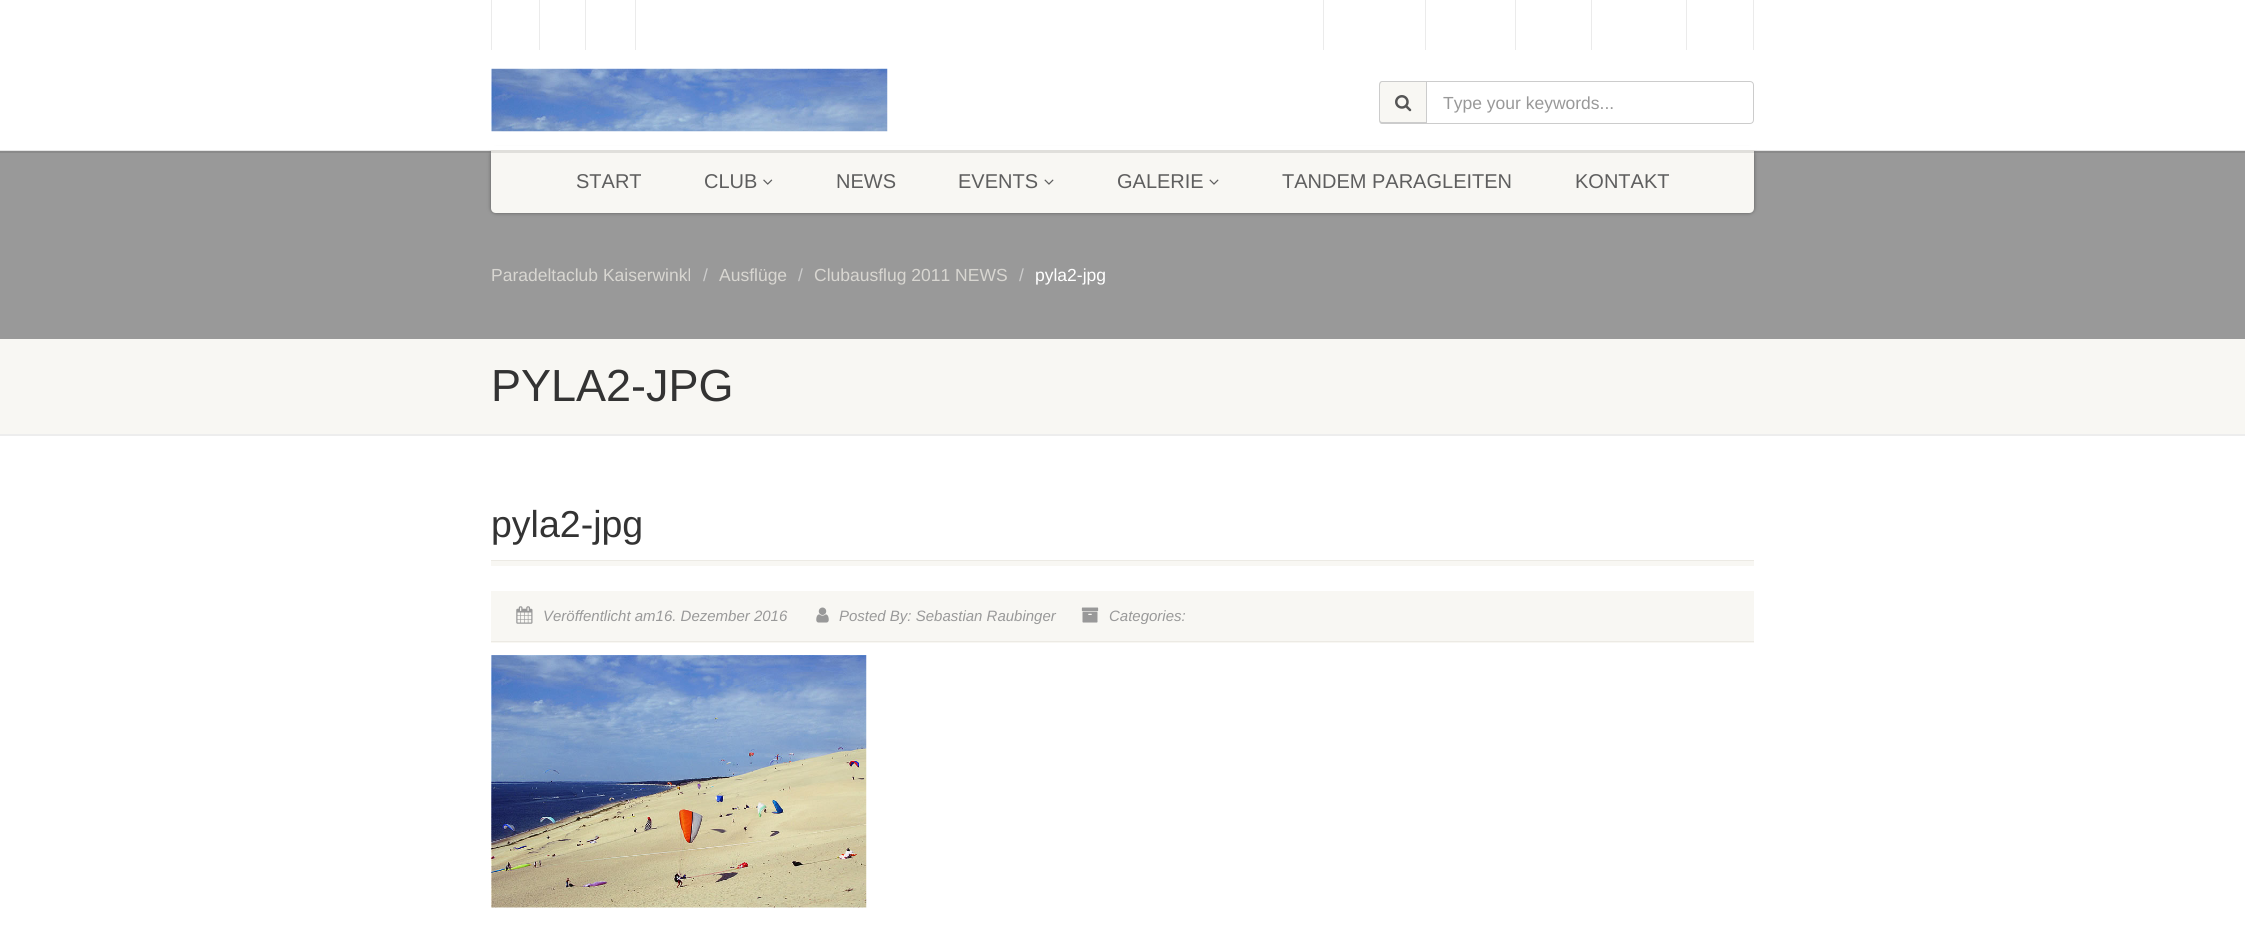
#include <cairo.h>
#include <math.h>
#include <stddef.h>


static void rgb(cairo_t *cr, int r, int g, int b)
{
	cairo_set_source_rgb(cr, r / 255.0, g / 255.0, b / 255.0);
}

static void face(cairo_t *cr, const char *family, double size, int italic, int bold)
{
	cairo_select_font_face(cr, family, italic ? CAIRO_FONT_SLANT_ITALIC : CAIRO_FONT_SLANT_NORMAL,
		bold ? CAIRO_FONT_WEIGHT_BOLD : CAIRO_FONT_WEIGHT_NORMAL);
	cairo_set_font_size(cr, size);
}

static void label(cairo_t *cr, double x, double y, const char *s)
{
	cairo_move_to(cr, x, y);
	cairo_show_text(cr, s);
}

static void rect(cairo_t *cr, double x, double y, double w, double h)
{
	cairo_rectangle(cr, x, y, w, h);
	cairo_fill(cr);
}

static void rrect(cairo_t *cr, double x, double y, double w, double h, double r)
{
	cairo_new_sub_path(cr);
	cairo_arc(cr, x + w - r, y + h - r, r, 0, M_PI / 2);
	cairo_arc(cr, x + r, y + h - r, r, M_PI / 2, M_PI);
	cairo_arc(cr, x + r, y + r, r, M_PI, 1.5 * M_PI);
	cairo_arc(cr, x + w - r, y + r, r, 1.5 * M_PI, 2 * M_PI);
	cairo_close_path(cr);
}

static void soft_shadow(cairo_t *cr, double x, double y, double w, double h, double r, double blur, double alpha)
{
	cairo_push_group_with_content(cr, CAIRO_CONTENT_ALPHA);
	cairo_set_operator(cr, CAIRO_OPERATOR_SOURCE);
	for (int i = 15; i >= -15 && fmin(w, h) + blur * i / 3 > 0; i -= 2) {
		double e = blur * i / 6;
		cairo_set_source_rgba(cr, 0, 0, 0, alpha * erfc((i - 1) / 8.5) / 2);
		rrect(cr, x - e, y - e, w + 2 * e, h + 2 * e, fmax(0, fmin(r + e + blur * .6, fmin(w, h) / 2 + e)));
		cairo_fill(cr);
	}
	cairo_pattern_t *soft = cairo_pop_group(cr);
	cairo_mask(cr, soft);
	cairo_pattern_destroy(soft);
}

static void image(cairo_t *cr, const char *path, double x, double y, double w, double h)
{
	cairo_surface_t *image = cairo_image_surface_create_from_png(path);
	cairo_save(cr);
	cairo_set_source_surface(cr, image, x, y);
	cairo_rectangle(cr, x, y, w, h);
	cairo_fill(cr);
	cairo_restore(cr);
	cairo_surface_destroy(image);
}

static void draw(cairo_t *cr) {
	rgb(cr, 255, 255, 255);
	cairo_paint(cr);
	rgb(cr, 235, 235, 235);
	rect(cr, 539, 0, 1, 50);
	rect(cr, 491, 0, 1, 50);
	rect(cr, 585, 0, 1, 50);
	rect(cr, 635, 0, 1, 50);
	rect(cr, 1425, 0, 1, 50);
	rect(cr, 1323, 0, 1, 50);
	rect(cr, 1515, 0, 1, 50);
	rect(cr, 1591, 0, 1, 50);
	rect(cr, 1686, 0, 1, 50);
	rect(cr, 1753, 0, 1, 50);
	rgb(cr, 153, 153, 153);
	rect(cr, 0, 151, 2245, 188);
	rgb(cr, 0, 0, 0);
	soft_shadow(cr, 491, 150, 1263, 63, 5, 2, 0.4);
	rgb(cr, 248, 247, 243);
	cairo_new_path(cr);
	cairo_move_to(cr, 491, 150);
	cairo_line_to(cr, 1754, 150);
	cairo_line_to(cr, 1754, 208);
	cairo_curve_to(cr, 1754, 211, 1752, 213, 1749, 213);
	cairo_line_to(cr, 496, 213);
	cairo_curve_to(cr, 493, 213, 491, 211, 491, 208);
	cairo_close_path(cr);
	cairo_fill(cr);
	cairo_set_source_rgba(cr, 0, 0, 0, 0.1);
	rect(cr, 0, 150, 2245, 3);
	rgb(cr, 255, 255, 255);
	rect(cr, 489, 146, 1267, 4);
	image(cr, "image0.png", 491, 68, 397, 64);
	rgb(cr, 248, 247, 243);
	cairo_new_path(cr);
	cairo_move_to(cr, 1383, 81);
	cairo_line_to(cr, 1426, 81);
	cairo_line_to(cr, 1426, 124);
	cairo_line_to(cr, 1383, 124);
	cairo_curve_to(cr, 1381, 124, 1379, 122, 1379, 120);
	cairo_line_to(cr, 1379, 85);
	cairo_curve_to(cr, 1379, 83, 1381, 81, 1383, 81);
	cairo_close_path(cr);
	cairo_fill(cr);
	rgb(cr, 204, 204, 204);
	cairo_set_fill_rule(cr, CAIRO_FILL_RULE_EVEN_ODD);
	cairo_new_path(cr);
	cairo_move_to(cr, 1382, 81);
	cairo_line_to(cr, 1426, 81);
	cairo_line_to(cr, 1426, 124);
	cairo_line_to(cr, 1382, 124);
	cairo_curve_to(cr, 1380, 124, 1379, 122, 1379, 120);
	cairo_line_to(cr, 1379, 85);
	cairo_curve_to(cr, 1379, 83, 1380, 81, 1382, 81);
	cairo_close_path(cr);
	cairo_move_to(cr, 1382, 82);
	cairo_line_to(cr, 1426, 82);
	cairo_line_to(cr, 1426, 122);
	cairo_line_to(cr, 1382, 122);
	cairo_curve_to(cr, 1381, 122, 1380, 121, 1380, 120);
	cairo_line_to(cr, 1380, 85);
	cairo_curve_to(cr, 1380, 84, 1381, 82, 1382, 82);
	cairo_close_path(cr);
	cairo_fill(cr);
	image(cr, "image1.png", 1395, 95, 17, 17);
	cairo_new_path(cr);
	cairo_move_to(cr, 1426.5, 81.5);
	cairo_line_to(cr, 1750, 81.5);
	cairo_curve_to(cr, 1752, 81.5, 1753.5, 83, 1753.5, 85);
	cairo_line_to(cr, 1753.5, 120);
	cairo_curve_to(cr, 1753.5, 122, 1752, 123.5, 1750, 123.5);
	cairo_line_to(cr, 1426.5, 123.5);
	cairo_close_path(cr);
	cairo_set_line_width(cr, 1);
	cairo_stroke(cr);
	face(cr, "Liberation Sans", 17.5, 0, 0);
	rgb(cr, 153, 153, 153);
	label(cr, 1443, 109, "Type your keywords...");
	face(cr, "Liberation Sans", 20, 0, 0);
	rgb(cr, 94, 94, 94);
	label(cr, 576, 188, "START");
	label(cr, 704, 188, "CLUB");
	image(cr, "image2.png", 763, 179, 10, 6);
	label(cr, 836, 188, "NEWS");
	label(cr, 958, 188, "EVENTS");
	image(cr, "image3.png", 1044, 179, 10, 6);
	label(cr, 1117, 188, "GALERIE");
	image(cr, "image3.png", 1209, 179, 10, 6);
	label(cr, 1282, 188, "TANDEM PARAGLEITEN");
	label(cr, 1575, 188, "KONTAKT");
	face(cr, "Liberation Sans", 17.5, 0, 0);
	rgb(cr, 216, 214, 209);
	label(cr, 491, 281, "Paradeltaclub Kaiserwinkl");
	rgb(cr, 204, 204, 204);
	label(cr, 703, 281, "/");
	rgb(cr, 216, 214, 209);
	label(cr, 719, 281, "Ausflüge");
	rgb(cr, 204, 204, 204);
	label(cr, 798, 281, "/");
	rgb(cr, 216, 214, 209);
	label(cr, 814, 281, "Clubausflug 2011 NEWS");
	rgb(cr, 204, 204, 204);
	label(cr, 1019, 281, "/");
	rgb(cr, 255, 255, 255);
	label(cr, 1035, 281, "pyla2-jpg");
	rgb(cr, 237, 237, 237);
	rect(cr, 0, 434, 2245, 2);
	rgb(cr, 248, 247, 243);
	rect(cr, 0, 339, 2245, 95);
	face(cr, "Liberation Sans", 45, 0, 0);
	rgb(cr, 51, 51, 51);
	label(cr, 491, 401, "PYLA2-JPG");
	rgb(cr, 236, 234, 228);
	rect(cr, 491, 560, 1263, 1);
	face(cr, "Liberation Sans", 37.5, 0, 0);
	rgb(cr, 51, 51, 51);
	label(cr, 491, 537, "pyla2-jpg");
	rgb(cr, 248, 247, 243);
	rect(cr, 491, 561, 1263, 5);
	rect(cr, 491, 591, 1263, 52);
	rgb(cr, 236, 234, 228);
	rect(cr, 491, 641, 1263, 1);
	image(cr, "image4.png", 516, 606, 17, 18);
	face(cr, "Liberation Sans", 15, 1, 0);
	rgb(cr, 153, 153, 153);
	label(cr, 543, 621, "Veröffentlicht am16. Dezember 2016");
	image(cr, "image5.png", 816, 607, 13, 16);
	label(cr, 839, 621, "Posted By: Sebastian Raubinger");
	image(cr, "image6.png", 1081, 607, 18, 16);
	label(cr, 1109, 621, "Categories:");
	image(cr, "image7.png", 491, 655, 376, 253);
}

int main(void) {
	cairo_surface_t *surface = cairo_image_surface_create(CAIRO_FORMAT_RGB24, 2245, 931);
	cairo_t *cr = cairo_create(surface);
	cairo_font_options_t *options = cairo_font_options_create();
	cairo_font_options_set_hint_metrics(options, CAIRO_HINT_METRICS_OFF);
	cairo_font_options_set_hint_style(options, CAIRO_HINT_STYLE_NONE);
	cairo_set_font_options(cr, options);
	cairo_set_miter_limit(cr, 4);
	draw(cr);
	cairo_surface_write_to_png(surface, "render.png");
	cairo_font_options_destroy(options);
	cairo_destroy(cr);
	cairo_surface_destroy(surface);
	return 0;
}
